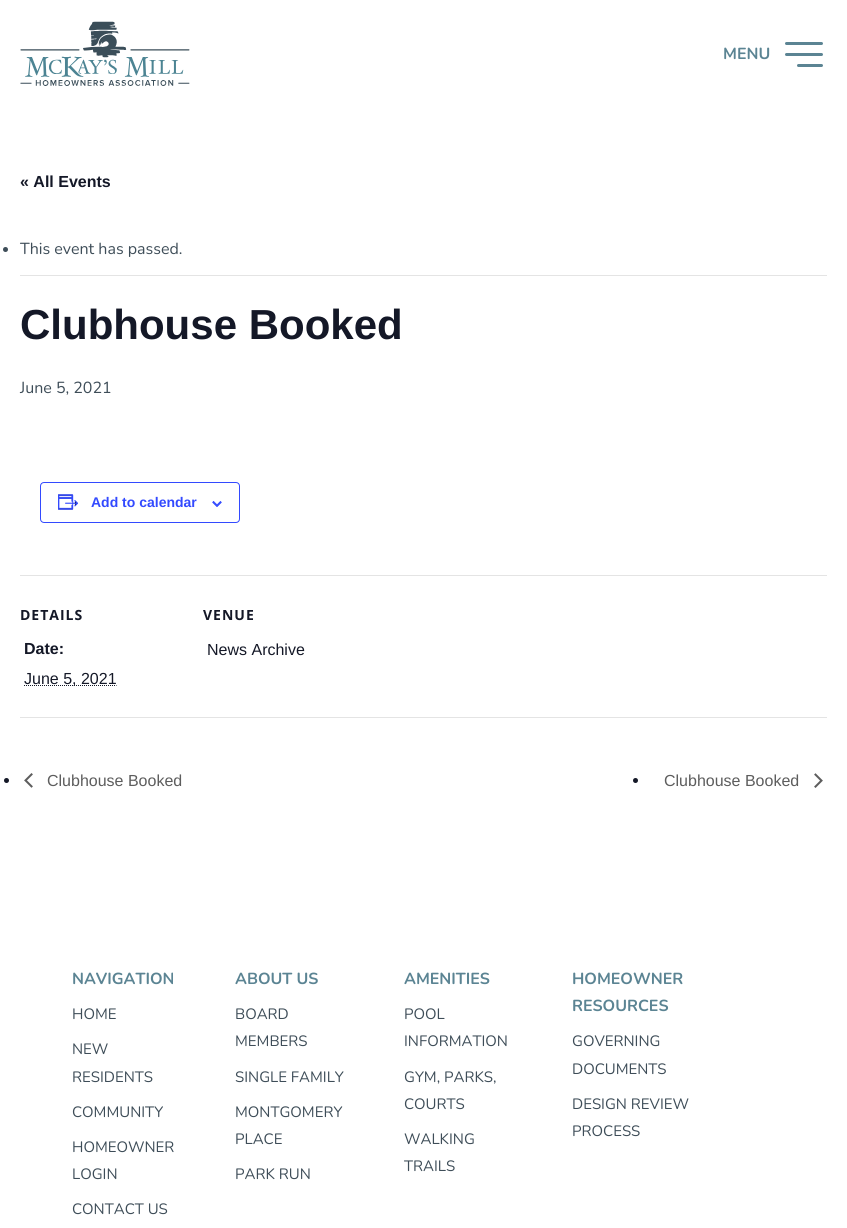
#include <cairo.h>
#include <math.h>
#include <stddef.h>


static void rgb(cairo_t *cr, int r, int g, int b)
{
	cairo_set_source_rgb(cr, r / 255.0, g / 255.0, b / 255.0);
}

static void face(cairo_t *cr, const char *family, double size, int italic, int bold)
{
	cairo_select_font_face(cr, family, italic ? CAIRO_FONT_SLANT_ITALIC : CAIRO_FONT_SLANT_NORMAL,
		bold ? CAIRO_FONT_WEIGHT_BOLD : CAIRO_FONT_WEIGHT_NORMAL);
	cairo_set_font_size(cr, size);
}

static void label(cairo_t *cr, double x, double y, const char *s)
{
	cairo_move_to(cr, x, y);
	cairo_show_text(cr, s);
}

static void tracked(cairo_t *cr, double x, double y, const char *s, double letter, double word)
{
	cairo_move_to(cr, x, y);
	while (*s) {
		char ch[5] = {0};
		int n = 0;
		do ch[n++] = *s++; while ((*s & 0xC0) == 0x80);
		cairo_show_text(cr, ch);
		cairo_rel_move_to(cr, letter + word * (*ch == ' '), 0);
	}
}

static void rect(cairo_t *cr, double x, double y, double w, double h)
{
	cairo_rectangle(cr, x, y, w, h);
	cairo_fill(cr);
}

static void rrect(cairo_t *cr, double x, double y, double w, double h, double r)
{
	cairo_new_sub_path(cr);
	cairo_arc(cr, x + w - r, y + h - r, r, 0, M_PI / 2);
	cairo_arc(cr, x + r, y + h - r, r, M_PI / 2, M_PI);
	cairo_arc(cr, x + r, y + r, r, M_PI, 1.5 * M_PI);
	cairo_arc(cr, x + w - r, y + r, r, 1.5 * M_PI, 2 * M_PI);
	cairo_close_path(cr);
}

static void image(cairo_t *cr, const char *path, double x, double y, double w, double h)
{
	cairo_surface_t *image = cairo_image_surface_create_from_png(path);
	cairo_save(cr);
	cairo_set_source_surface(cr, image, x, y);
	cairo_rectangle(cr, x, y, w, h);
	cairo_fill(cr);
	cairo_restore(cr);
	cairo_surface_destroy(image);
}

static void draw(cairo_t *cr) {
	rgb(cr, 255, 255, 255);
	cairo_paint(cr);
	image(cr, "image0.png", 20, 21, 170, 65);
	face(cr, "Nunito", 16, 0, 1);
	rgb(cr, 91, 132, 147);
	label(cr, 723, 59, "MENU");
	rrect(cr, 785, 42, 38, 3, 1.5);
	cairo_fill(cr);
	rrect(cr, 785, 53, 38, 3, 1.5);
	cairo_fill(cr);
	rrect(cr, 797, 64, 26, 3, 1.5);
	cairo_fill(cr);
	face(cr, "Liberation Sans", 16, 0, 1);
	rgb(cr, 20, 24, 39);
	label(cr, 20, 187, "« All Events");
	rgb(cr, 228, 228, 228);
	rect(cr, 20, 275, 807, 1);
	rgb(cr, 62, 77, 88);
	cairo_new_path(cr);
	cairo_arc(cr, 5.5, 249.5, 2.5, 0, 2 * M_PI);
	cairo_fill(cr);
	face(cr, "Nunito", 16, 0, 0);
	label(cr, 20, 254, "This event has passed.");
	face(cr, "Liberation Sans", 42, 0, 1);
	rgb(cr, 20, 24, 39);
	label(cr, 20, 339, "Clubhouse Booked");
	face(cr, "Nunito", 16, 0, 0);
	rgb(cr, 62, 77, 88);
	label(cr, 20, 393, "June 5, 2021");
	rrect(cr, 40.5, 482.5, 199, 40, 3.5);
	rgb(cr, 51, 74, 255);
	cairo_set_line_width(cr, 1);
	cairo_stroke(cr);
	image(cr, "image1.png", 58, 494, 21, 16);
	face(cr, "Liberation Sans", 14, 0, 1);
	label(cr, 91, 507, "Add to calendar");
	image(cr, "image2.png", 212, 501, 10, 6);
	rgb(cr, 228, 228, 228);
	rect(cr, 20, 575, 807, 1);
	face(cr, "Open Sans", 14, 0, 1);
	rgb(cr, 20, 24, 39);
	tracked(cr, 20, 620, "DETAILS", 1, 0);
	face(cr, "Liberation Sans", 16, 0, 1);
	label(cr, 24, 654, "Date:");
	cairo_new_path(cr);
	cairo_move_to(cr, 24, 685.5);
	cairo_line_to(cr, 116.5, 685.5);
	cairo_set_dash(cr, (double[]){1, 1}, 2, 0);
	cairo_stroke(cr);
	face(cr, "Liberation Sans", 16, 0, 0);
	label(cr, 24, 684, "June 5, 2021");
	face(cr, "Open Sans", 14, 0, 1);
	tracked(cr, 203, 620, "VENUE", 1, 0);
	face(cr, "Liberation Sans", 16, 0, 0);
	label(cr, 207, 655, "News Archive");
	rgb(cr, 228, 228, 228);
	rect(cr, 20, 717, 807, 1);
	rgb(cr, 20, 24, 39);
	cairo_new_path(cr);
	cairo_arc(cr, 6.5, 780.5, 2.5, 0, 2 * M_PI);
	cairo_fill(cr);
	image(cr, "image3.png", 24, 773, 9, 15);
	rgb(cr, 93, 93, 93);
	label(cr, 47, 786, "Clubhouse Booked");
	rgb(cr, 20, 24, 39);
	cairo_new_path(cr);
	cairo_arc(cr, 635.5, 780.5, 2.5, 0, 2 * M_PI);
	cairo_fill(cr);
	rgb(cr, 93, 93, 93);
	label(cr, 664, 786, "Clubhouse Booked");
	image(cr, "image4.png", 814, 773, 9, 15);
	face(cr, "Nunito", 16, 0, 1);
	rgb(cr, 91, 132, 147);
	label(cr, 72, 984, "NAVIGATION");
	face(cr, "Nunito", 15, 0, 0);
	rgb(cr, 62, 77, 88);
	label(cr, 72, 1019, "HOME");
	label(cr, 72, 1054, "NEW");
	label(cr, 72, 1082, "RESIDENTS");
	label(cr, 72, 1117, "COMMUNITY");
	label(cr, 72, 1152, "HOMEOWNER");
	label(cr, 72, 1179, "LOGIN");
	label(cr, 72, 1214, "CONTACT US");
	face(cr, "Nunito", 16, 0, 1);
	rgb(cr, 91, 132, 147);
	label(cr, 235, 984, "ABOUT US");
	face(cr, "Nunito", 15, 0, 0);
	rgb(cr, 62, 77, 88);
	label(cr, 235, 1019, "BOARD");
	label(cr, 235, 1046, "MEMBERS");
	label(cr, 235, 1082, "SINGLE FAMILY");
	label(cr, 235, 1117, "MONTGOMERY");
	label(cr, 235, 1144, "PLACE");
	label(cr, 235, 1179, "PARK RUN");
	face(cr, "Nunito", 16, 0, 1);
	rgb(cr, 91, 132, 147);
	label(cr, 404, 984, "AMENITIES");
	face(cr, "Nunito", 15, 0, 0);
	rgb(cr, 62, 77, 88);
	label(cr, 404, 1019, "POOL");
	label(cr, 404, 1046, "INFORMATION");
	label(cr, 404, 1082, "GYM, PARKS,");
	label(cr, 404, 1109, "COURTS");
	label(cr, 404, 1144, "WALKING");
	label(cr, 404, 1171, "TRAILS");
	face(cr, "Nunito", 16, 0, 1);
	rgb(cr, 91, 132, 147);
	label(cr, 572, 984, "HOMEOWNER");
	label(cr, 572, 1011, "RESOURCES");
	face(cr, "Nunito", 15, 0, 0);
	rgb(cr, 62, 77, 88);
	label(cr, 572, 1046, "GOVERNING");
	label(cr, 572, 1074, "DOCUMENTS");
	label(cr, 572, 1109, "DESIGN REVIEW");
	label(cr, 572, 1136, "PROCESS");
}

int main(void) {
	cairo_surface_t *surface = cairo_image_surface_create(CAIRO_FORMAT_RGB24, 847, 1228);
	cairo_t *cr = cairo_create(surface);
	cairo_font_options_t *options = cairo_font_options_create();
	cairo_font_options_set_hint_metrics(options, CAIRO_HINT_METRICS_OFF);
	cairo_font_options_set_hint_style(options, CAIRO_HINT_STYLE_NONE);
	cairo_set_font_options(cr, options);
	cairo_set_miter_limit(cr, 4);
	draw(cr);
	cairo_surface_write_to_png(surface, "render.png");
	cairo_font_options_destroy(options);
	cairo_destroy(cr);
	cairo_surface_destroy(surface);
	return 0;
}
